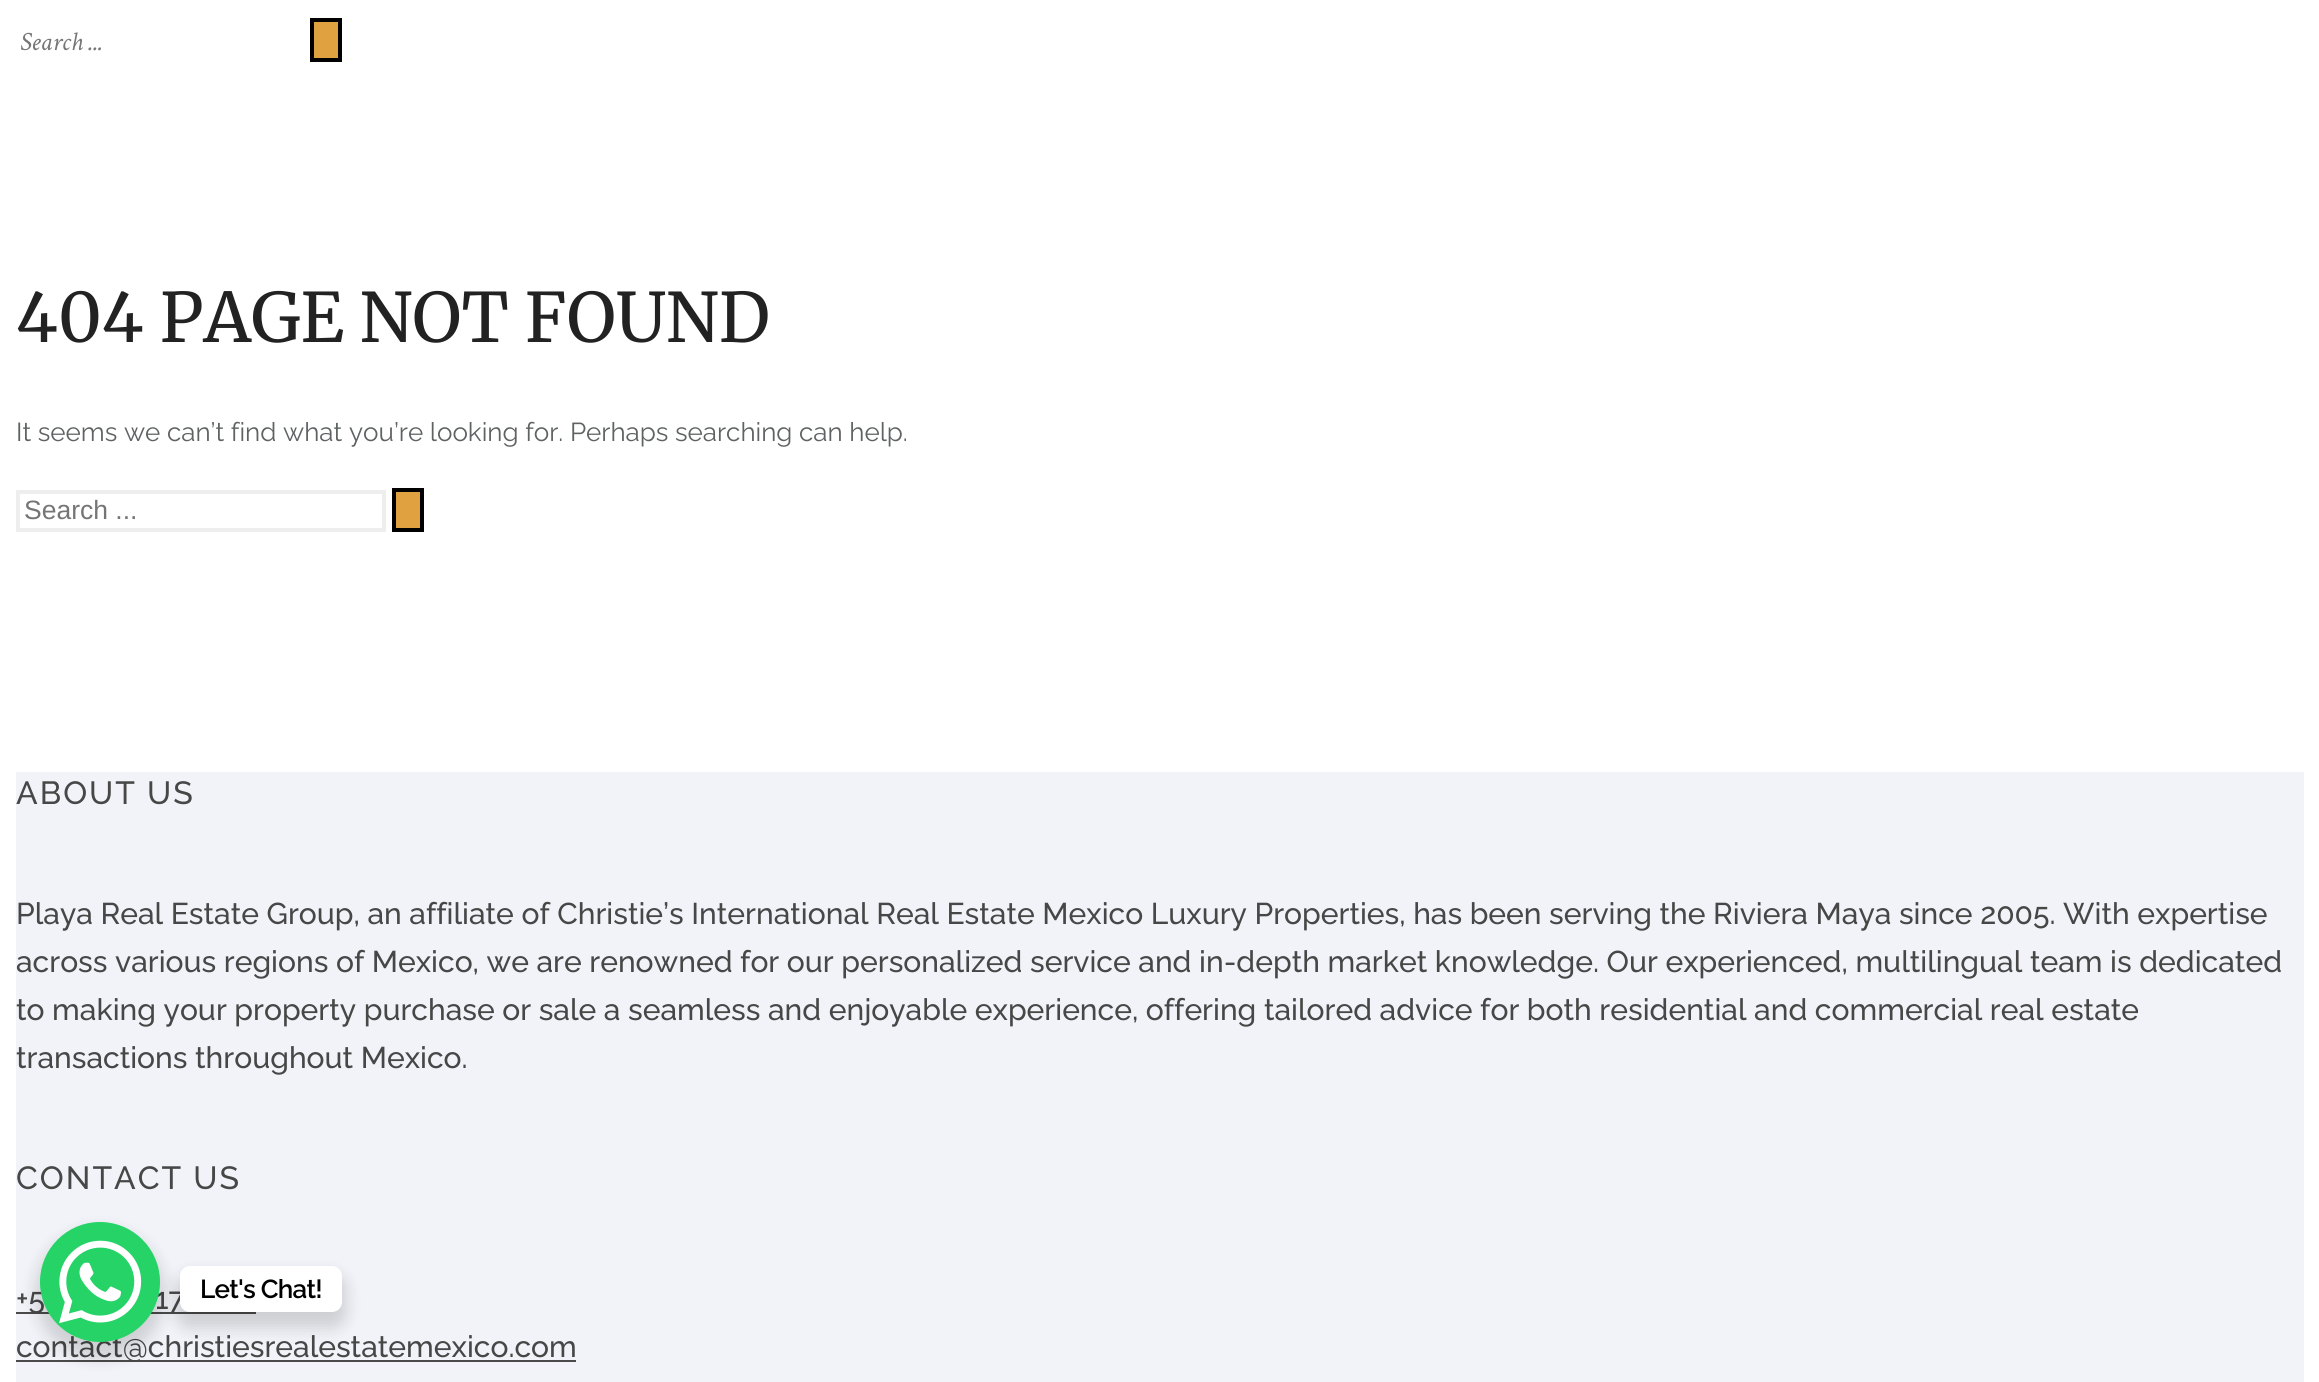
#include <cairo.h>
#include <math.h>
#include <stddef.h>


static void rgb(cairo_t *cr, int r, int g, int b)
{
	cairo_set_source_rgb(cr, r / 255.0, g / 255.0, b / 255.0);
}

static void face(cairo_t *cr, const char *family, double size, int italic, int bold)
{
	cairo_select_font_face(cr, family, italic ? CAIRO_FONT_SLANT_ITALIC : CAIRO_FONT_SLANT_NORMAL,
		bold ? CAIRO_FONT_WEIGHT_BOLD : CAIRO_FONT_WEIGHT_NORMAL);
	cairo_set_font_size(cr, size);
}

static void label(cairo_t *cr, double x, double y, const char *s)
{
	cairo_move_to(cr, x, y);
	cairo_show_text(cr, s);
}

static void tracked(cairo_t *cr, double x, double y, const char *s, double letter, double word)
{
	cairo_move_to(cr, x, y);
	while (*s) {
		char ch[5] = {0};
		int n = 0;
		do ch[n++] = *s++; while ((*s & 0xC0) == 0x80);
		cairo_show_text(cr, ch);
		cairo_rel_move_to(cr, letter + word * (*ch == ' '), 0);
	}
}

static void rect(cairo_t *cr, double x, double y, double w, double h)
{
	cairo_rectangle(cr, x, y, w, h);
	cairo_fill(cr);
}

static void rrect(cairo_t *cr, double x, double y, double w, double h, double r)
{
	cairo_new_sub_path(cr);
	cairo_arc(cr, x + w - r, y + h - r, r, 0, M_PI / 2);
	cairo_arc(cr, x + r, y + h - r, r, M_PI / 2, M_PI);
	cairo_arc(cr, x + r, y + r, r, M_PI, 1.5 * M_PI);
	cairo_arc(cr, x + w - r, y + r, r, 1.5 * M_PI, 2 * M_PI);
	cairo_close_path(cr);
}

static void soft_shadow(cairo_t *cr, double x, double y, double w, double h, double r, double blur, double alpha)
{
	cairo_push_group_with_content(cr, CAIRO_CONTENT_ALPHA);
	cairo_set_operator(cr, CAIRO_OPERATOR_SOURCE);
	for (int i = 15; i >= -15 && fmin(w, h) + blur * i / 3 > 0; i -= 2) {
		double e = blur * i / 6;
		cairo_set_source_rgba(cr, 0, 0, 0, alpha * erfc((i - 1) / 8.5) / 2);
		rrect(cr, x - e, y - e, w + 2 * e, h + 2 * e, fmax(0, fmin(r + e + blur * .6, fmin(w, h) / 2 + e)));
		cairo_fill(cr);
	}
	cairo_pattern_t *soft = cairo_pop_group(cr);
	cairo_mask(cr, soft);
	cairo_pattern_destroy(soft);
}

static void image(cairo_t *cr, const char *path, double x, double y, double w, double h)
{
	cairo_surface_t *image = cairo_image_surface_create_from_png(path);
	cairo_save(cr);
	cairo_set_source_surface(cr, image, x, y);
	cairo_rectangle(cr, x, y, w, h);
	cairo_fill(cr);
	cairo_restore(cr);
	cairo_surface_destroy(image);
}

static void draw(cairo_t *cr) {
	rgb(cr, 255, 255, 255);
	cairo_paint(cr);
	face(cr, "Crimson Text", 26.5, 1, 0);
	rgb(cr, 117, 117, 117);
	label(cr, 20, 50, "Search ...");
	rgb(cr, 224, 162, 64);
	cairo_rectangle(cr, 312, 20, 28, 40);
	cairo_fill_preserve(cr);
	rgb(cr, 0, 0, 0);
	cairo_set_line_width(cr, 4);
	cairo_stroke(cr);
	face(cr, "Merriweather Light", 68, 0, 0);
	rgb(cr, 34, 34, 34);
	label(cr, 16, 342, "404 PAGE NOT FOUND");
	face(cr, "Raleway", 26, 0, 0);
	rgb(cr, 95, 98, 99);
	label(cr, 16, 441, "It seems we can’t find what you’re looking for. Perhaps searching can help.");
	cairo_rectangle(cr, 18, 492, 366, 38);
	rgb(cr, 238, 238, 238);
	cairo_stroke(cr);
	face(cr, "Liberation Sans", 26.5, 0, 0);
	rgb(cr, 117, 117, 117);
	label(cr, 24, 519, "Search ...");
	rgb(cr, 224, 162, 64);
	cairo_rectangle(cr, 394, 490, 28, 40);
	cairo_fill_preserve(cr);
	rgb(cr, 0, 0, 0);
	cairo_stroke(cr);
	rgb(cr, 242, 243, 248);
	rect(cr, 16, 772, 2288, 610);
	face(cr, "Raleway Medium", 32, 0, 0);
	rgb(cr, 71, 71, 71);
	tracked(cr, 16, 804, "ABOUT US", 2, 0);
	face(cr, "Raleway Medium", 30, 0, 0);
	label(cr, 16, 924, "Playa Real Estate Group, an affiliate of Christie’s International Real Estate Mexico Luxury Properties, has been serving the Riviera Maya since 2005. With expertise");
	label(cr, 16, 972, "across various regions of Mexico, we are renowned for our personalized service and in-depth market knowledge. Our experienced, multilingual team is dedicated");
	label(cr, 16, 1020, "to making your property purchase or sale a seamless and enjoyable experience, offering tailored advice for both residential and commercial real estate");
	label(cr, 16, 1068, "transactions throughout Mexico.");
	face(cr, "Raleway Medium", 32, 0, 0);
	tracked(cr, 16, 1189, "CONTACT US", 2, 0);
	rgb(cr, 74, 74, 74);
	rect(cr, 16, 1312, 240, 2);
	face(cr, "Raleway Medium", 30, 0, 0);
	rgb(cr, 71, 71, 71);
	label(cr, 16, 1309, "+5");
	label(cr, 155, 1309, "17");
	rgb(cr, 74, 74, 74);
	rect(cr, 16, 1360, 560, 2);
	rgb(cr, 71, 71, 71);
	label(cr, 16, 1357, "contact@christiesrealestatemexico.com");
	rgb(cr, 0, 0, 0);
	soft_shadow(cr, 36, 1230, 128, 128, 64, 8, 0.15);
	rgb(cr, 37, 211, 102);
	cairo_arc(cr, 100, 1282, 60, 0, 2 * M_PI);
	cairo_fill(cr);
	image(cr, "image0.png", 59, 1240, 83, 84);
	rgb(cr, 0, 0, 0);
	soft_shadow(cr, 176, 1274, 170, 54, 14, 8, 0.15);
	rgb(cr, 255, 255, 255);
	rrect(cr, 180, 1266, 162, 46, 10);
	cairo_fill(cr);
	face(cr, "Raleway SemiBold", 26, 0, 0);
	rgb(cr, 0, 0, 0);
	tracked(cr, 200, 1298, "Let's Chat!", -0.75, 0);
}

int main(void) {
	cairo_surface_t *surface = cairo_image_surface_create(CAIRO_FORMAT_RGB24, 2319, 1382);
	cairo_t *cr = cairo_create(surface);
	cairo_font_options_t *options = cairo_font_options_create();
	cairo_font_options_set_hint_metrics(options, CAIRO_HINT_METRICS_OFF);
	cairo_font_options_set_hint_style(options, CAIRO_HINT_STYLE_NONE);
	cairo_set_font_options(cr, options);
	cairo_set_miter_limit(cr, 4);
	draw(cr);
	cairo_surface_write_to_png(surface, "render.png");
	cairo_font_options_destroy(options);
	cairo_destroy(cr);
	cairo_surface_destroy(surface);
	return 0;
}
